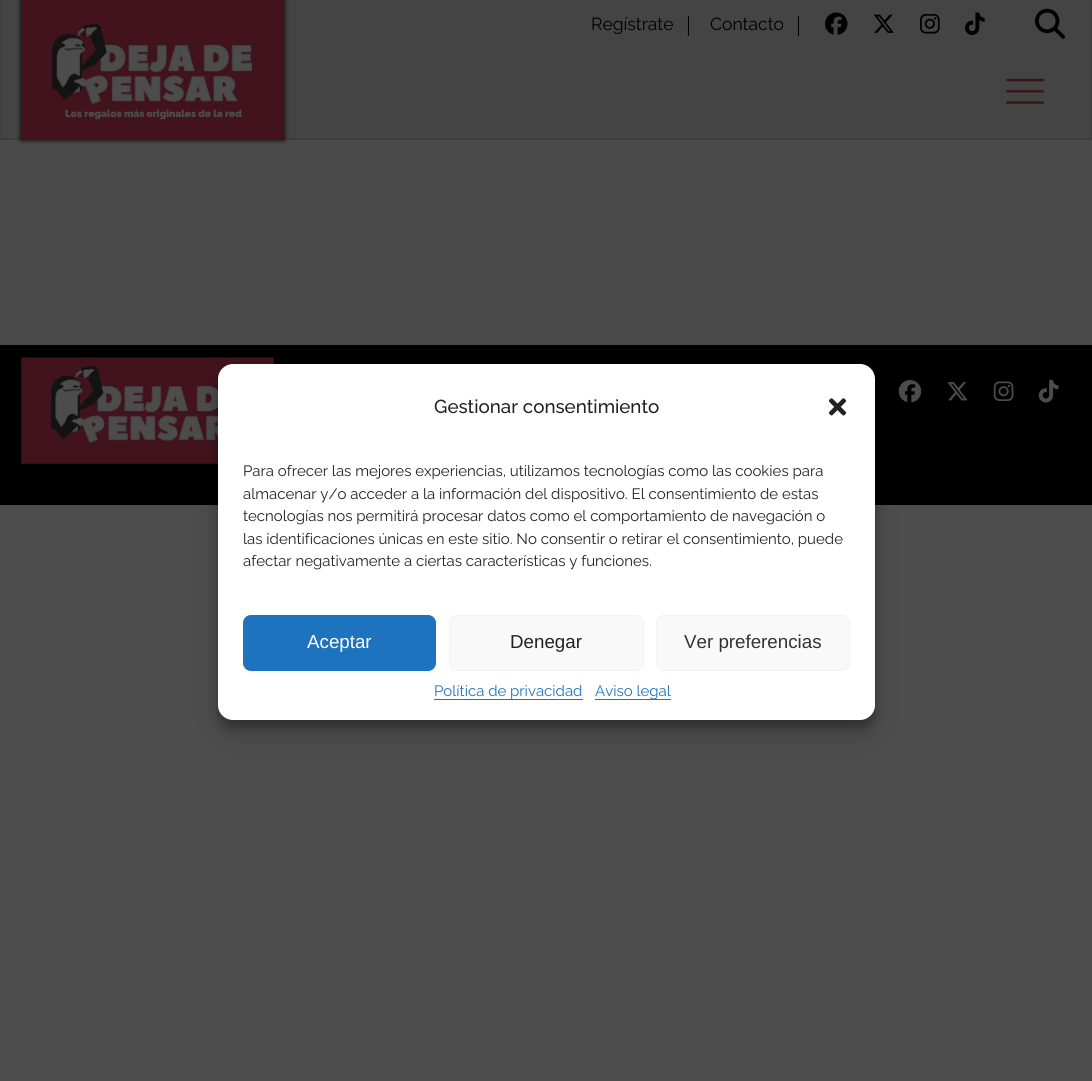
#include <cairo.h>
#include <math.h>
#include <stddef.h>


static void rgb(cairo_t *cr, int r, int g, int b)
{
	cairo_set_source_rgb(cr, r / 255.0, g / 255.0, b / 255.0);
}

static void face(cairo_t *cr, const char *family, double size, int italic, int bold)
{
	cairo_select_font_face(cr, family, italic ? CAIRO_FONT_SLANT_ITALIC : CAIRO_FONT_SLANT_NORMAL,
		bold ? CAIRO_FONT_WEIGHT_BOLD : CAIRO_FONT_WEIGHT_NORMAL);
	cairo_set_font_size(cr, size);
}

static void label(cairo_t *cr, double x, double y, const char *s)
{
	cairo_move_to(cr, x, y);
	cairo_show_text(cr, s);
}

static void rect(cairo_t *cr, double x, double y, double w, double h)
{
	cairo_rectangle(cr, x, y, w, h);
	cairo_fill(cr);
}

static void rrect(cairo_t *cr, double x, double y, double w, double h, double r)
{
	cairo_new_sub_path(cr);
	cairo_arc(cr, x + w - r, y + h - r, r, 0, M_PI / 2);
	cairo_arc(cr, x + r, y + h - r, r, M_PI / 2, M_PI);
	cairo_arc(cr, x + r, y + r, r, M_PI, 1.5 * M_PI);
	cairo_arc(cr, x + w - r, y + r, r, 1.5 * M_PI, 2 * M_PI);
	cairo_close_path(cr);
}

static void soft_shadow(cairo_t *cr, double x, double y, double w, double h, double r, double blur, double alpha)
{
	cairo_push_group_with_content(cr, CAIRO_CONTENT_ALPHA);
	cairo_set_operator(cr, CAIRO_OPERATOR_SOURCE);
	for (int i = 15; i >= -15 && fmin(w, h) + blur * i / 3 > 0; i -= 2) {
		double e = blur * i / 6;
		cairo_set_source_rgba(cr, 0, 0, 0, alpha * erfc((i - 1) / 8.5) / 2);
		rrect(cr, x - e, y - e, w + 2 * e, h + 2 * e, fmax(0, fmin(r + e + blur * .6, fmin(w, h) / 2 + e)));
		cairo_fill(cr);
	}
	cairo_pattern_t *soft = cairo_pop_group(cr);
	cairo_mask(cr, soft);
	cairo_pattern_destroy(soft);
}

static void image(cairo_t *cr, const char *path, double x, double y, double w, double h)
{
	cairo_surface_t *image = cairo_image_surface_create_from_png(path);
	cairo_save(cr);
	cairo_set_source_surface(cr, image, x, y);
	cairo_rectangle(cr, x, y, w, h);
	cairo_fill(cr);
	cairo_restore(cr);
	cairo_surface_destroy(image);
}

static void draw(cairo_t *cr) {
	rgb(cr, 77, 77, 77);
	cairo_paint(cr);
	rgb(cr, 74, 74, 74);
	rect(cr, 0, 140, 1092, 205);
	rgb(cr, 68, 68, 68);
	rect(cr, 1, 0, 1090, 138);
	cairo_save(cr);
	cairo_rectangle(cr, 0, 0, 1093, 140);
	cairo_clip(cr);
	rgb(cr, 61, 61, 61);
	cairo_set_fill_rule(cr, CAIRO_FILL_RULE_EVEN_ODD);
	cairo_new_path(cr);
	cairo_move_to(cr, -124, -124);
	cairo_line_to(cr, 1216, -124);
	cairo_line_to(cr, 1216, 264);
	cairo_line_to(cr, -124, 264);
	cairo_close_path(cr);
	cairo_move_to(cr, 1, 0);
	cairo_line_to(cr, 1091, 0);
	cairo_line_to(cr, 1091, 138);
	cairo_line_to(cr, 1, 138);
	cairo_close_path(cr);
	cairo_fill(cr);
	cairo_restore(cr);
	face(cr, "Raleway", 17.5, 0, 0);
	rgb(cr, 0, 0, 0);
	label(cr, 591, 30, "Regístrate");
	face(cr, "Raleway Light", 22, 0, 0);
	label(cr, 686, 33, "|");
	face(cr, "Raleway", 17.5, 0, 0);
	label(cr, 710, 30, "Contacto");
	face(cr, "Raleway Light", 22, 0, 0);
	label(cr, 796, 33, "|");
	image(cr, "image0.png", 825, 12, 23, 23);
	image(cr, "image1.png", 873, 14, 21, 19);
	image(cr, "image2.png", 920, 14, 20, 20);
	image(cr, "image3.png", 965, 12, 20, 23);
	image(cr, "image4.png", 1035, 8, 30, 31);
	image(cr, "image5.png", 1006, 78, 38, 26);
	rgb(cr, 0, 0, 0);
	soft_shadow(cr, 21, 0, 263, 140, 0, 2.5, 1);
	image(cr, "image6.png", 21, 0, 263, 140);
	face(cr, "Raleway Black", 10, 0, 0);
	rgb(cr, 77, 77, 77);
	label(cr, 65, 117, "Los regalos más originales de la red");
	rgb(cr, 0, 0, 0);
	rect(cr, 0, 345, 1092, 160);
	image(cr, "image7.png", 21, 357, 253, 107);
	image(cr, "image8.png", 898, 380, 24, 23);
	image(cr, "image9.png", 947, 382, 21, 19);
	image(cr, "image10.png", 993, 381, 21, 20);
	image(cr, "image11.png", 1038, 380, 21, 23);
	rgb(cr, 0, 0, 0);
	soft_shadow(cr, 218, 371, 657, 357, 15, 4, 0.23);
	soft_shadow(cr, 218, 376, 657, 357, 15, 12.5, 0.19);
	rgb(cr, 255, 255, 255);
	rrect(cr, 218, 364, 657, 356, 15);
	cairo_fill(cr);
	face(cr, "Raleway Medium", 18.75, 0, 0);
	rgb(cr, 34, 34, 34);
	label(cr, 434, 413, "Gestionar consentimiento");
	image(cr, "image12.png", 828, 398, 19, 18);
	face(cr, "Raleway", 15, 0, 0);
	label(cr, 243, 476, "Para ofrecer las mejores experiencias, utilizamos tecnologías como las cookies para");
	label(cr, 243, 499, "almacenar y/o acceder a la información del dispositivo. El consentimiento de estas");
	label(cr, 243, 521, "tecnologías nos permitirá procesar datos como el comportamiento de navegación o");
	label(cr, 243, 544, "las identificaciones únicas en este sitio. No consentir o retirar el consentimiento, puede");
	label(cr, 243, 566, "afectar negativamente a ciertas características y funciones.");
	rgb(cr, 30, 115, 190);
	rrect(cr, 243.5, 615.5, 192, 55, 7.5);
	cairo_fill_preserve(cr);
	cairo_set_line_width(cr, 1);
	cairo_stroke(cr);
	face(cr, "Liberation Sans", 18.75, 0, 0);
	rgb(cr, 255, 255, 255);
	label(cr, 307, 648, "Aceptar");
	rgb(cr, 249, 249, 249);
	rrect(cr, 449.5, 615.5, 194, 55, 7.5);
	cairo_fill_preserve(cr);
	rgb(cr, 242, 242, 242);
	cairo_stroke(cr);
	rgb(cr, 34, 34, 34);
	label(cr, 510, 648, "Denegar");
	rgb(cr, 249, 249, 249);
	rrect(cr, 656.5, 615.5, 193, 55, 7.5);
	cairo_fill_preserve(cr);
	rgb(cr, 242, 242, 242);
	cairo_stroke(cr);
	rgb(cr, 51, 51, 51);
	label(cr, 684, 648, "Ver preferencias");
	rgb(cr, 30, 115, 190);
	rect(cr, 434, 699, 149, 1);
	face(cr, "Raleway", 15, 0, 0);
	label(cr, 434, 696, "Política de privacidad");
	rect(cr, 595, 699, 76, 1);
	label(cr, 595, 696, "Aviso legal");
}

int main(void) {
	cairo_surface_t *surface = cairo_image_surface_create(CAIRO_FORMAT_RGB24, 1092, 1081);
	cairo_t *cr = cairo_create(surface);
	cairo_font_options_t *options = cairo_font_options_create();
	cairo_font_options_set_hint_metrics(options, CAIRO_HINT_METRICS_OFF);
	cairo_font_options_set_hint_style(options, CAIRO_HINT_STYLE_NONE);
	cairo_set_font_options(cr, options);
	cairo_set_miter_limit(cr, 4);
	draw(cr);
	cairo_surface_write_to_png(surface, "render.png");
	cairo_font_options_destroy(options);
	cairo_destroy(cr);
	cairo_surface_destroy(surface);
	return 0;
}
